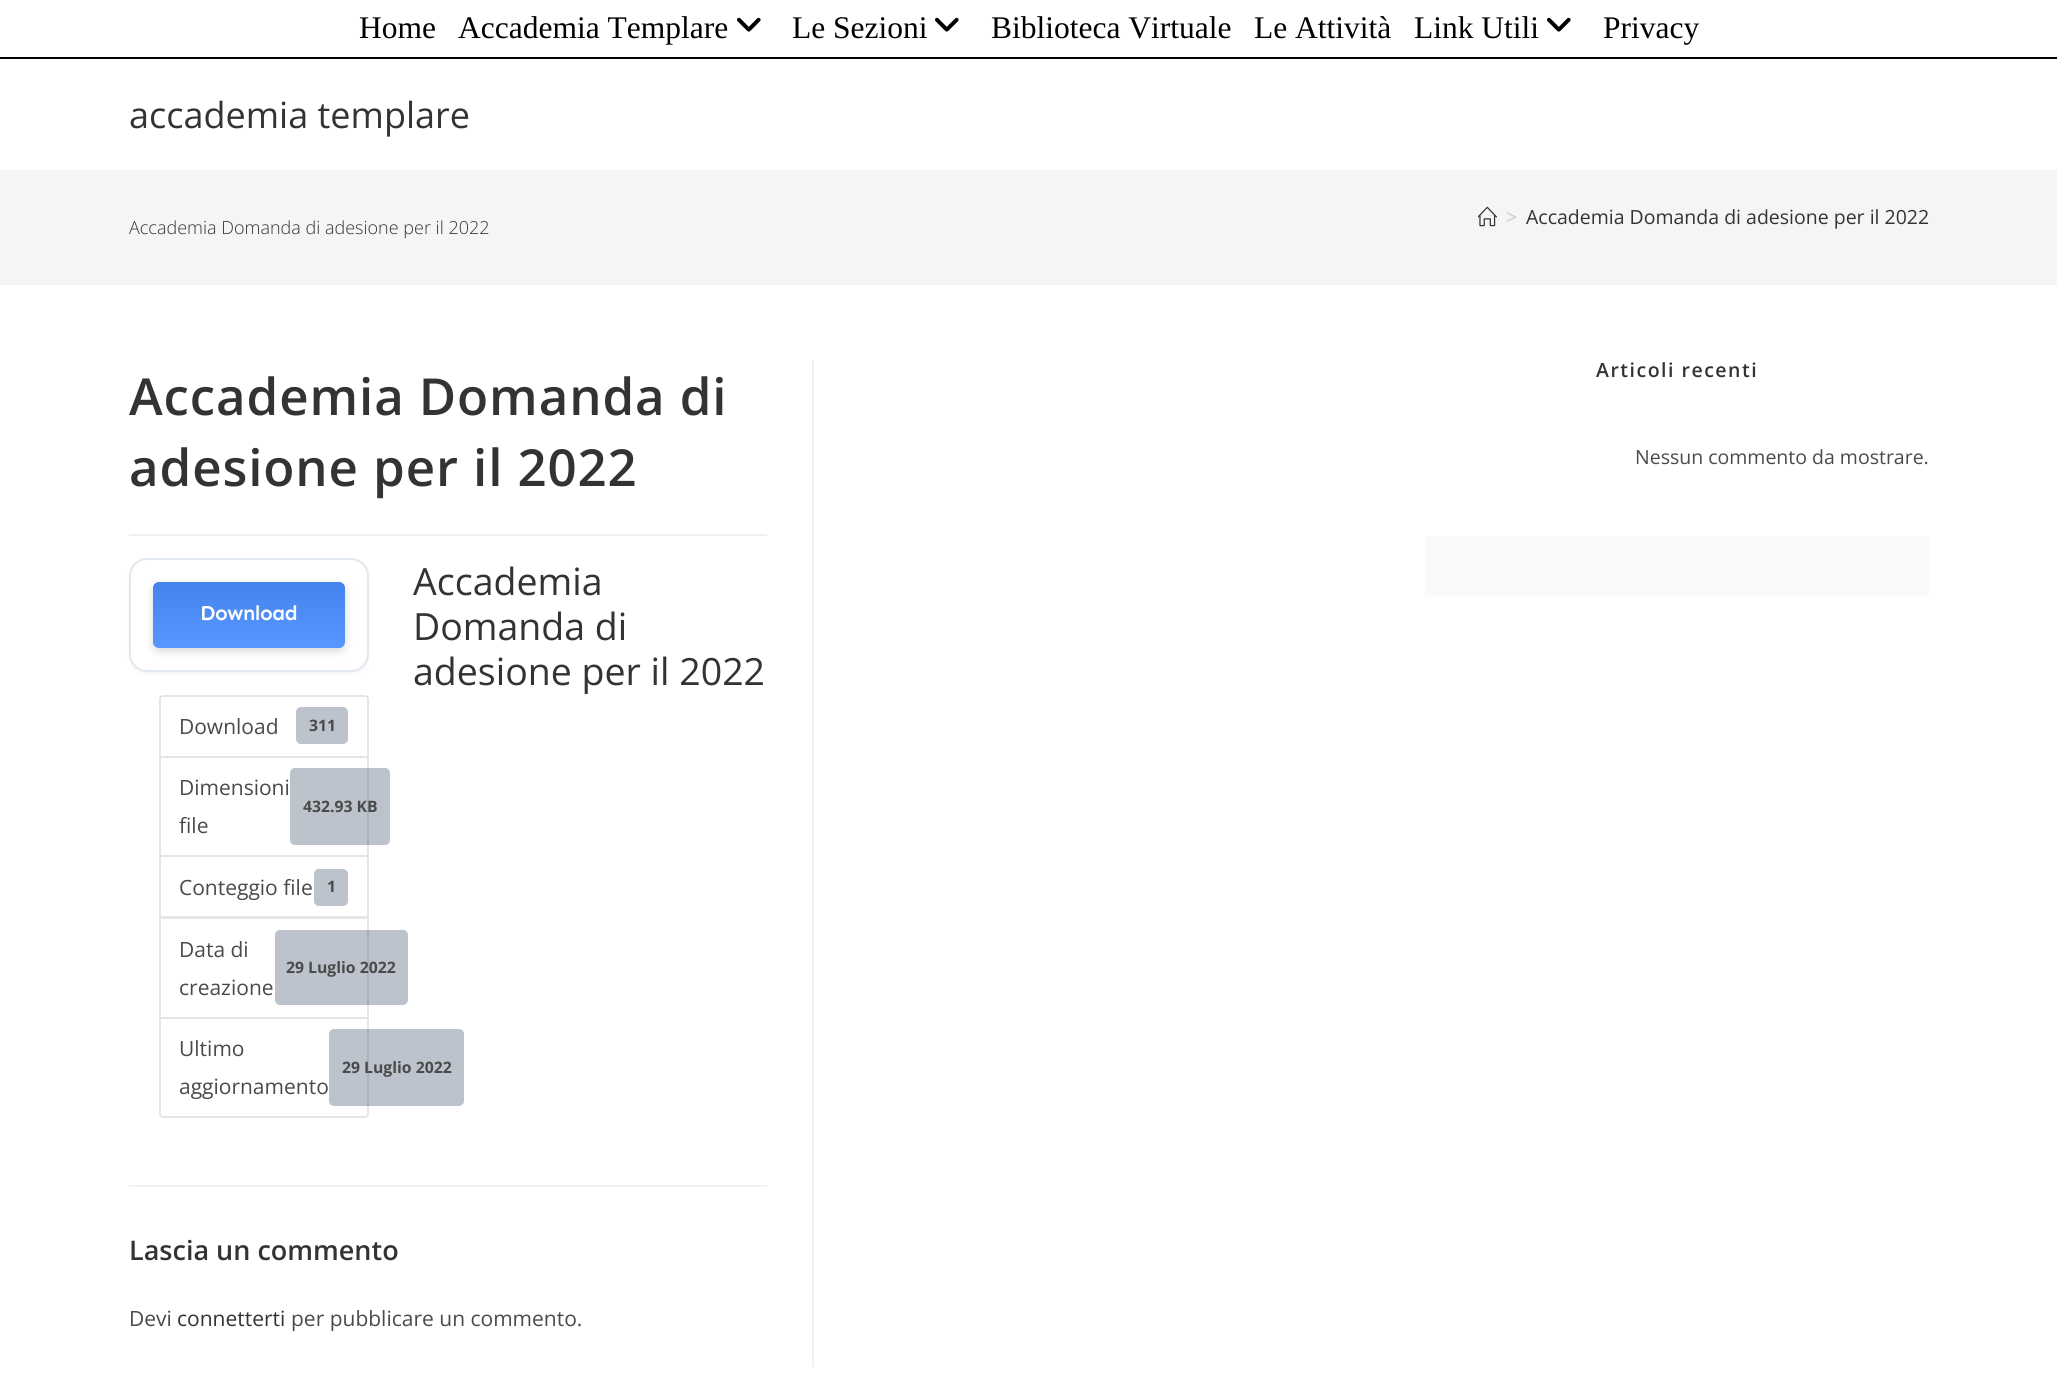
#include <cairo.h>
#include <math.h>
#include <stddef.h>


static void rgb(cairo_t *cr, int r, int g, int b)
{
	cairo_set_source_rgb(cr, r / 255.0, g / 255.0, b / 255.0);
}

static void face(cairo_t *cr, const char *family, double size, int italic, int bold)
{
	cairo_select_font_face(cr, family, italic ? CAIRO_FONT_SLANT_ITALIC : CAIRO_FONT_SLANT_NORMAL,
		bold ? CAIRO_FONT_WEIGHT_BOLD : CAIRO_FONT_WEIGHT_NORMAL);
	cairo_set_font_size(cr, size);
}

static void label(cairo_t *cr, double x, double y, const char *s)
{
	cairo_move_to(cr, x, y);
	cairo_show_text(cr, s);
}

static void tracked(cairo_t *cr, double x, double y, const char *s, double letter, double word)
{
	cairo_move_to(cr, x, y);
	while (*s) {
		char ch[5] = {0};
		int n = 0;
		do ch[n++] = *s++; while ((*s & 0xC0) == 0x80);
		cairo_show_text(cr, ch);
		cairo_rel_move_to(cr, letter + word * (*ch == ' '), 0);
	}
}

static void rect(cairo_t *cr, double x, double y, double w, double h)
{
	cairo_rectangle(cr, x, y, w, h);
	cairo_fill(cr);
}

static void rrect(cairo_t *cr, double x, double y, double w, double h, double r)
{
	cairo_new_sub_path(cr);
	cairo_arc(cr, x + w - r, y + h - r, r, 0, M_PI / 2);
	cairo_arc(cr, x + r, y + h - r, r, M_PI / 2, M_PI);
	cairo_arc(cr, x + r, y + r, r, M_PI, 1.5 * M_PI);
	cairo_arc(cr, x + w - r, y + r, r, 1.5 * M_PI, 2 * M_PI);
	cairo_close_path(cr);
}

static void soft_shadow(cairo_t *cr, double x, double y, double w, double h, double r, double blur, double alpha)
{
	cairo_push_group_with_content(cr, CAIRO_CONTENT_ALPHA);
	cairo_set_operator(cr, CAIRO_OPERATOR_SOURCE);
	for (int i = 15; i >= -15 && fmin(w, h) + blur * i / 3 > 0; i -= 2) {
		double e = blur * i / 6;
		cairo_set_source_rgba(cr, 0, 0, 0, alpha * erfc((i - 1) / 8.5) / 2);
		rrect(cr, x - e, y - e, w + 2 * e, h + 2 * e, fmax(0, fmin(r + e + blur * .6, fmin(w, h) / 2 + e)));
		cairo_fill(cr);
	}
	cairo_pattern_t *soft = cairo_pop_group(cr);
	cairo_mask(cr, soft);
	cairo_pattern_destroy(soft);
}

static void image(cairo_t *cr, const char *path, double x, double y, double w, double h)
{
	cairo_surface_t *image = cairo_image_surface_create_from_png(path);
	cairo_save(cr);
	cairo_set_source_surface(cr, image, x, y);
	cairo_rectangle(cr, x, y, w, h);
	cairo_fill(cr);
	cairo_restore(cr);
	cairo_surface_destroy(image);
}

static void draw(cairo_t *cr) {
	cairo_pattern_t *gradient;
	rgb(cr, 255, 255, 255);
	cairo_paint(cr);
	rgb(cr, 0, 0, 0);
	rect(cr, 0, 57, 2057, 2);
	face(cr, "Liberation Serif", 31.5, 0, 0);
	label(cr, 359, 38, "Home");
	label(cr, 458, 38, "Accademia Templare");
	image(cr, "image0.png", 737, 17, 24, 15);
	label(cr, 792, 38, "Le Sezioni");
	image(cr, "image0.png", 935, 17, 24, 15);
	label(cr, 991, 38, "Biblioteca Virtuale");
	label(cr, 1254, 38, "Le Attività");
	label(cr, 1414, 38, "Link Utili");
	image(cr, "image0.png", 1547, 17, 24, 15);
	label(cr, 1603, 38, "Privacy");
	face(cr, "Open Sans", 36, 0, 0);
	rgb(cr, 51, 51, 51);
	label(cr, 129, 128, "accademia templare");
	rgb(cr, 245, 245, 245);
	rect(cr, 0, 170, 2057, 115);
	face(cr, "Open Sans Light", 18, 0, 0);
	rgb(cr, 51, 51, 51);
	label(cr, 129, 234, "Accademia Domanda di adesione per il 2022");
	image(cr, "image1.png", 1478, 206, 19, 21);
	face(cr, "Open Sans", 19.5, 0, 0);
	rgb(cr, 198, 198, 198);
	label(cr, 1506, 224, ">");
	rgb(cr, 51, 51, 51);
	label(cr, 1526, 224, "Accademia Domanda di adesione per il 2022");
	rgb(cr, 241, 241, 241);
	rect(cr, 812, 360, 2, 1007);
	rect(cr, 129, 534, 638, 2);
	face(cr, "Open Sans SemiBold", 51, 0, 0);
	rgb(cr, 51, 51, 51);
	tracked(cr, 129, 415, "Accademia Domanda di", 0.9, 0);
	tracked(cr, 129, 486, "adesione per il 2022", 0.9, 0);
	rgb(cr, 0, 0, 0);
	soft_shadow(cr, 129, 560, 240, 114, 18, 2, 0.04);
	rgb(cr, 255, 255, 255);
	rrect(cr, 130, 559, 238, 112, 17);
	cairo_fill_preserve(cr);
	rgb(cr, 226, 232, 240);
	cairo_stroke(cr);
	rgb(cr, 0, 0, 0);
	soft_shadow(cr, 153, 585, 192, 66, 6, 4.5, 0.15);
	rgb(cr, 74, 142, 255);
	rrect(cr, 153, 582, 192, 66, 6);
	cairo_fill(cr);
	gradient = cairo_pattern_create_linear(249, 582, 249, 648);
	cairo_pattern_add_color_stop_rgba(gradient, 0, 0, 0, 0, 0.08);
	cairo_pattern_add_color_stop_rgba(gradient, 1, 1, 1, 1, 0.08);
	cairo_set_source(cr, gradient);
	cairo_pattern_destroy(gradient);
	rrect(cr, 153, 582, 192, 66, 6);
	cairo_fill(cr);
	face(cr, "Sen SemiBold", 21, 0, 0);
	rgb(cr, 255, 255, 255);
	tracked(cr, 200, 620, "Download", -0.5, 0);
	cairo_new_path(cr);
	cairo_move_to(cr, 163, 696);
	cairo_line_to(cr, 365, 696);
	cairo_curve_to(cr, 366.5, 696, 368, 697.5, 368, 699);
	cairo_line_to(cr, 368, 757);
	cairo_line_to(cr, 160, 757);
	cairo_line_to(cr, 160, 699);
	cairo_curve_to(cr, 160, 697.5, 161.5, 696, 163, 696);
	cairo_close_path(cr);
	rgb(cr, 229, 229, 229);
	cairo_stroke(cr);
	face(cr, "Open Sans", 21, 0, 0);
	rgb(cr, 74, 74, 74);
	label(cr, 179, 734, "Download");
	rgb(cr, 188, 195, 204);
	rrect(cr, 296, 707, 52, 37, 5);
	cairo_fill(cr);
	face(cr, "Open Sans", 15.75, 0, 1);
	rgb(cr, 74, 74, 74);
	label(cr, 309, 731, "311");
	cairo_rectangle(cr, 160, 757, 208, 99);
	rgb(cr, 229, 229, 229);
	cairo_stroke(cr);
	face(cr, "Open Sans", 21, 0, 0);
	rgb(cr, 74, 74, 74);
	label(cr, 179, 795, "Dimensioni");
	cairo_set_source_rgba(cr, 0.122, 0.216, 0.333, 0.3);
	rrect(cr, 290, 768, 100, 77, 5);
	cairo_fill(cr);
	face(cr, "Open Sans", 15.75, 0, 1);
	rgb(cr, 74, 74, 74);
	label(cr, 303, 812, "432.93 KB");
	face(cr, "Open Sans", 21, 0, 0);
	label(cr, 179, 833, "file");
	cairo_rectangle(cr, 160, 856, 208, 61);
	rgb(cr, 229, 229, 229);
	cairo_stroke(cr);
	rgb(cr, 74, 74, 74);
	label(cr, 179, 895, "Conteggio file");
	rgb(cr, 188, 195, 204);
	rrect(cr, 314, 869, 34, 37, 5);
	cairo_fill(cr);
	face(cr, "Open Sans", 15.75, 0, 1);
	rgb(cr, 74, 74, 74);
	label(cr, 327, 892, "1");
	cairo_rectangle(cr, 160, 918, 208, 100);
	rgb(cr, 229, 229, 229);
	cairo_stroke(cr);
	face(cr, "Open Sans", 21, 0, 0);
	rgb(cr, 74, 74, 74);
	label(cr, 179, 957, "Data di");
	cairo_set_source_rgba(cr, 0.122, 0.216, 0.333, 0.3);
	rrect(cr, 275, 930, 133, 75, 5);
	cairo_fill(cr);
	face(cr, "Open Sans", 15.75, 0, 1);
	rgb(cr, 74, 74, 74);
	label(cr, 286, 973, "29 Luglio 2022");
	face(cr, "Open Sans", 21, 0, 0);
	label(cr, 179, 995, "creazione");
	rgb(cr, 255, 255, 255);
	cairo_new_path(cr);
	cairo_move_to(cr, 160, 1018);
	cairo_line_to(cr, 368, 1018);
	cairo_line_to(cr, 368, 1114);
	cairo_curve_to(cr, 368, 1115.5, 366.5, 1117, 365, 1117);
	cairo_line_to(cr, 163, 1117);
	cairo_curve_to(cr, 161.5, 1117, 160, 1115.5, 160, 1114);
	cairo_close_path(cr);
	cairo_fill_preserve(cr);
	rgb(cr, 229, 229, 229);
	cairo_stroke(cr);
	rgb(cr, 74, 74, 74);
	label(cr, 179, 1056, "Ultimo");
	cairo_set_source_rgba(cr, 0.122, 0.216, 0.333, 0.3);
	rrect(cr, 329, 1029, 135, 77, 5);
	cairo_fill(cr);
	face(cr, "Open Sans", 15.75, 0, 1);
	rgb(cr, 74, 74, 74);
	label(cr, 342, 1073, "29 Luglio 2022");
	face(cr, "Open Sans", 21, 0, 0);
	label(cr, 179, 1094, "aggiornamento");
	face(cr, "Open Sans", 37.5, 0, 0);
	rgb(cr, 51, 51, 51);
	label(cr, 413, 595, "Accademia");
	label(cr, 413, 640, "Domanda di");
	label(cr, 413, 685, "adesione per il 2022");
	rgb(cr, 241, 241, 241);
	rect(cr, 129, 1185, 638, 2);
	face(cr, "Open Sans SemiBold", 27, 0, 0);
	rgb(cr, 51, 51, 51);
	label(cr, 129, 1260, "Lascia un commento");
	face(cr, "Open Sans", 21, 0, 0);
	rgb(cr, 74, 74, 74);
	label(cr, 129, 1326, "Devi");
	rgb(cr, 51, 51, 51);
	label(cr, 177, 1326, "connetterti");
	rgb(cr, 74, 74, 74);
	label(cr, 291, 1326, "per pubblicare un commento.");
	face(cr, "Open Sans SemiBold", 19.5, 0, 0);
	rgb(cr, 51, 51, 51);
	tracked(cr, 1596, 377, "Articoli recenti", 1.5, 0);
	face(cr, "Open Sans", 19.5, 0, 0);
	rgb(cr, 74, 74, 74);
	label(cr, 1635, 464, "Nessun commento da mostrare.");
	rgb(cr, 250, 250, 250);
	rect(cr, 1425, 536, 504, 60);
}

int main(void) {
	cairo_surface_t *surface = cairo_image_surface_create(CAIRO_FORMAT_RGB24, 2057, 1398);
	cairo_t *cr = cairo_create(surface);
	cairo_font_options_t *options = cairo_font_options_create();
	cairo_font_options_set_hint_metrics(options, CAIRO_HINT_METRICS_OFF);
	cairo_font_options_set_hint_style(options, CAIRO_HINT_STYLE_NONE);
	cairo_set_font_options(cr, options);
	cairo_set_miter_limit(cr, 4);
	draw(cr);
	cairo_surface_write_to_png(surface, "render.png");
	cairo_font_options_destroy(options);
	cairo_destroy(cr);
	cairo_surface_destroy(surface);
	return 0;
}
